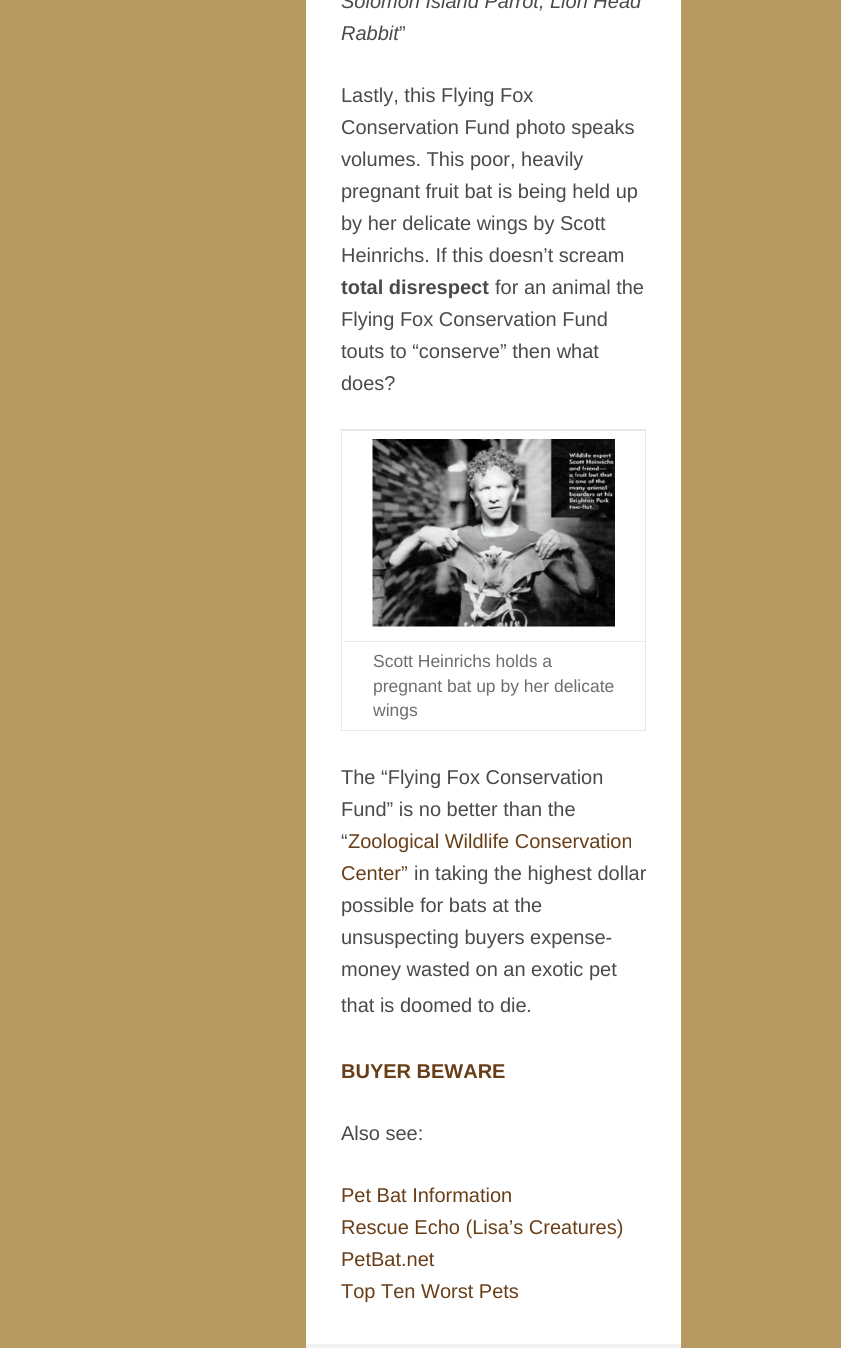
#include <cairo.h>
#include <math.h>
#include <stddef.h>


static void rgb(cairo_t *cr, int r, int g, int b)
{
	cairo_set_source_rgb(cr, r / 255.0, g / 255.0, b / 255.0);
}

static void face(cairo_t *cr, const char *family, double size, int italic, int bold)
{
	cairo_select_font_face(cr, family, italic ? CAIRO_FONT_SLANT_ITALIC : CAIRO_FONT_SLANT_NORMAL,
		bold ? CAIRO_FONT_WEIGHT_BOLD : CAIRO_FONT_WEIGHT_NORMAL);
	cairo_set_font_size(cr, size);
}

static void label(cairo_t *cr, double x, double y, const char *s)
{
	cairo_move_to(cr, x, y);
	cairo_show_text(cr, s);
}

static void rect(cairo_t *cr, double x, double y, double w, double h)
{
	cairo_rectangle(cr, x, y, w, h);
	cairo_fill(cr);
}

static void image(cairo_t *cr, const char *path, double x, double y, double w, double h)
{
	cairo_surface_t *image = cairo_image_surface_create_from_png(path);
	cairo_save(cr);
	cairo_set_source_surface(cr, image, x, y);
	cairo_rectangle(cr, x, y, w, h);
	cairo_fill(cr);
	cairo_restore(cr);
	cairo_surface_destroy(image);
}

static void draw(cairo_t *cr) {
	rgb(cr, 182, 153, 97);
	cairo_paint(cr);
	rgb(cr, 255, 255, 255);
	rect(cr, 306, 0, 375, 1344);
	face(cr, "Liberation Sans", 20, 1, 0);
	rgb(cr, 74, 74, 74);
	label(cr, 341, 8, "Solomon Island Parrot, Lion Head");
	label(cr, 341, 40, "Rabbit");
	face(cr, "Liberation Sans", 20, 0, 0);
	label(cr, 399, 40, "”");
	label(cr, 341, 102, "Lastly, this Flying Fox");
	label(cr, 341, 134, "Conservation Fund photo speaks");
	label(cr, 341, 166, "volumes. This poor, heavily");
	label(cr, 341, 198, "pregnant fruit bat is being held up");
	label(cr, 341, 230, "by her delicate wings by Scott");
	label(cr, 341, 262, "Heinrichs. If this doesn’t scream");
	face(cr, "Liberation Sans", 20, 0, 1);
	label(cr, 341, 294, "total disrespect");
	face(cr, "Liberation Sans", 20, 0, 0);
	label(cr, 495, 294, "for an animal the");
	label(cr, 341, 326, "Flying Fox Conservation Fund");
	label(cr, 341, 358, "touts to “conserve” then what");
	label(cr, 341, 390, "does?");
	cairo_rectangle(cr, 341.5, 429.5, 304, 301);
	rgb(cr, 231, 231, 231);
	cairo_set_line_width(cr, 1);
	cairo_stroke(cr);
	rect(cr, 343, 430, 302, 1);
	image(cr, "image0.png", 372, 439, 243, 188);
	rect(cr, 343, 641, 302, 1);
	face(cr, "Liberation Sans", 17.5, 0, 0);
	rgb(cr, 109, 109, 109);
	label(cr, 373, 667, "Scott Heinrichs holds a");
	label(cr, 373, 692, "pregnant bat up by her delicate");
	label(cr, 373, 716, "wings");
	face(cr, "Liberation Sans", 20, 0, 0);
	rgb(cr, 74, 74, 74);
	label(cr, 341, 784, "The “Flying Fox Conservation");
	label(cr, 341, 816, "Fund” is no better than the");
	label(cr, 341, 848, "“");
	rgb(cr, 104, 62, 24);
	label(cr, 348, 848, "Zoological Wildlife Conservation");
	label(cr, 341, 880, "Center”");
	rgb(cr, 74, 74, 74);
	label(cr, 414, 880, "in taking the highest dollar");
	label(cr, 341, 912, "possible for bats at the");
	label(cr, 341, 944, "unsuspecting buyers expense-");
	label(cr, 341, 976, "money wasted on an exotic pet");
	label(cr, 341, 1012, "that is doomed to die");
	face(cr, "Liberation Sans", 20, 1, 0);
	label(cr, 527, 1012, ".");
	face(cr, "Liberation Sans", 20, 0, 1);
	rgb(cr, 104, 62, 24);
	label(cr, 341, 1078, "BUYER BEWARE");
	face(cr, "Liberation Sans", 20, 0, 0);
	rgb(cr, 74, 74, 74);
	label(cr, 341, 1140, "Also see:");
	rgb(cr, 104, 62, 24);
	label(cr, 341, 1202, "Pet Bat Information");
	label(cr, 341, 1234, "Rescue Echo (Lisa’s Creatures)");
	label(cr, 341, 1266, "PetBat.net");
	label(cr, 341, 1298, "Top Ten Worst Pets");
	rgb(cr, 241, 241, 241);
	rect(cr, 306, 1344, 375, 4);
}

int main(void) {
	cairo_surface_t *surface = cairo_image_surface_create(CAIRO_FORMAT_RGB24, 841, 1348);
	cairo_t *cr = cairo_create(surface);
	cairo_font_options_t *options = cairo_font_options_create();
	cairo_font_options_set_hint_metrics(options, CAIRO_HINT_METRICS_OFF);
	cairo_font_options_set_hint_style(options, CAIRO_HINT_STYLE_NONE);
	cairo_set_font_options(cr, options);
	cairo_set_miter_limit(cr, 4);
	draw(cr);
	cairo_surface_write_to_png(surface, "render.png");
	cairo_font_options_destroy(options);
	cairo_destroy(cr);
	cairo_surface_destroy(surface);
	return 0;
}
